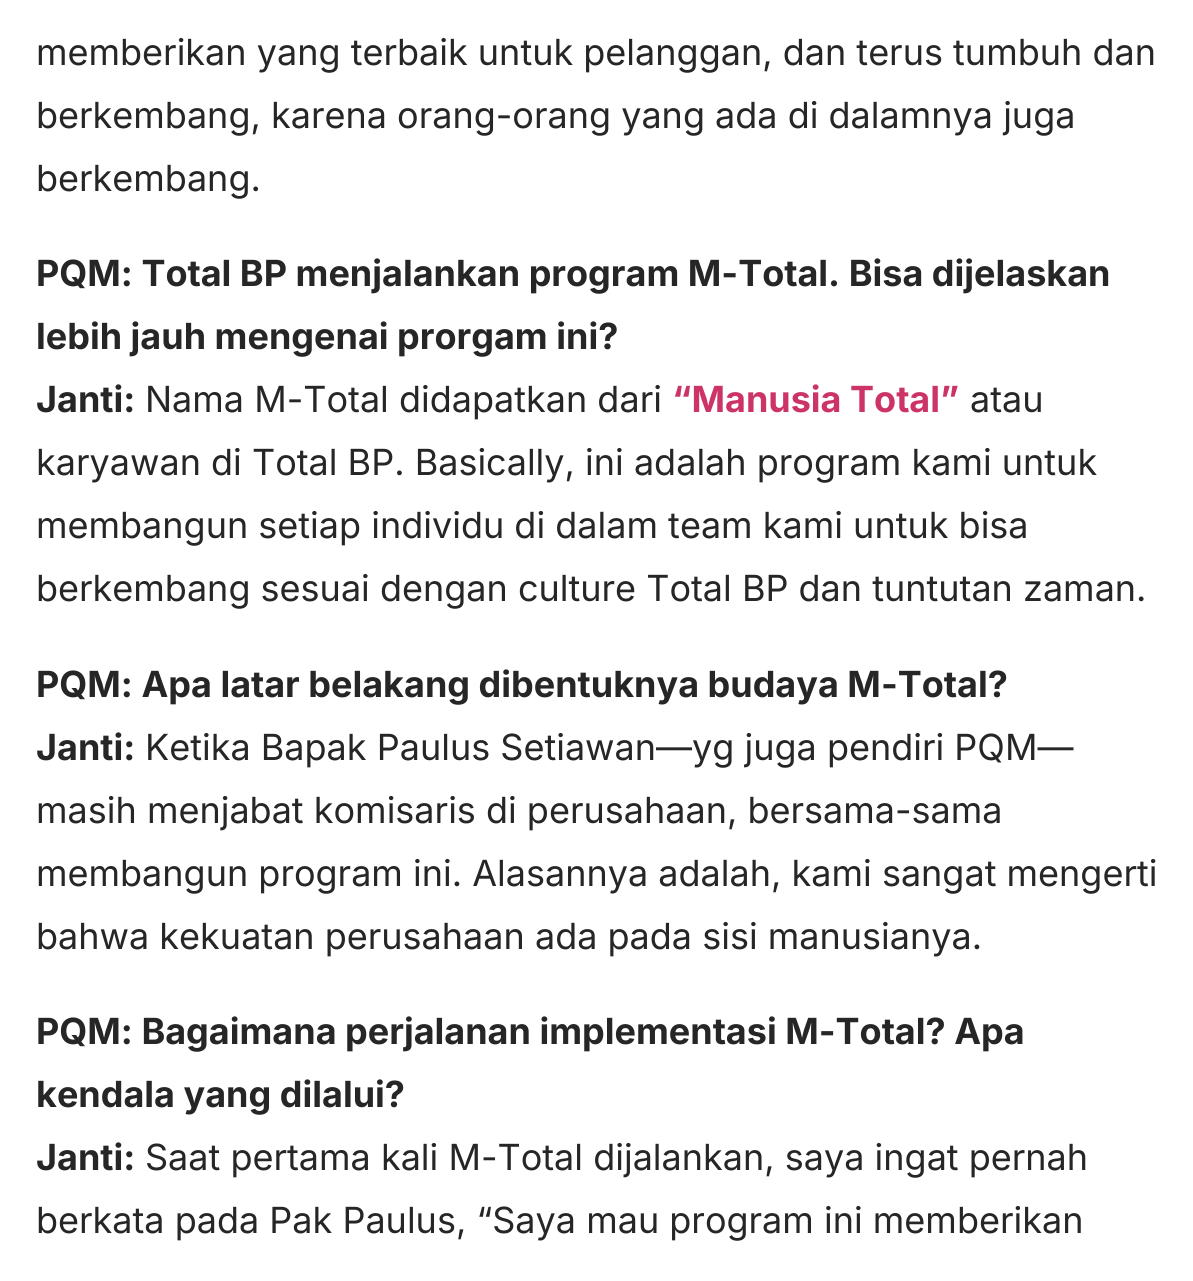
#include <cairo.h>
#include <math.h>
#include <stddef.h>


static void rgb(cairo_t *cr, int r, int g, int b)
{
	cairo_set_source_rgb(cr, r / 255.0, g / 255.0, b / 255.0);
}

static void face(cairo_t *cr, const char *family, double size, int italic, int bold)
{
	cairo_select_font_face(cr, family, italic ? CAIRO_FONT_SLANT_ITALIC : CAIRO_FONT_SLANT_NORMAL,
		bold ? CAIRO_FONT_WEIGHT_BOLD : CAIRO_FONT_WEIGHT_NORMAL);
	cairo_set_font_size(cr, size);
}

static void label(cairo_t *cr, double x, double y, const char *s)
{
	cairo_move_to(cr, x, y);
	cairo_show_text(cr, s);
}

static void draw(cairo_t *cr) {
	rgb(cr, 255, 255, 255);
	cairo_paint(cr);
	face(cr, "Inter", 36, 0, 0);
	rgb(cr, 38, 38, 38);
	label(cr, 36, 65, "memberikan yang terbaik untuk pelanggan, dan terus tumbuh dan");
	label(cr, 36, 128, "berkembang, karena orang-orang yang ada di dalamnya juga");
	label(cr, 36, 191, "berkembang.");
	face(cr, "Inter", 36, 0, 1);
	label(cr, 36, 286, "PQM: Total BP menjalankan program M-Total. Bisa dijelaskan");
	label(cr, 36, 349, "lebih jauh mengenai prorgam ini?");
	label(cr, 36, 412, "Janti:");
	face(cr, "Inter", 36, 0, 0);
	label(cr, 145, 412, "Nama M-Total didapatkan dari");
	face(cr, "Inter", 36, 0, 1);
	rgb(cr, 204, 51, 102);
	label(cr, 672, 412, "“Manusia Total”");
	face(cr, "Inter", 36, 0, 0);
	rgb(cr, 38, 38, 38);
	label(cr, 970, 412, "atau");
	label(cr, 36, 475, "karyawan di Total BP. Basically, ini adalah program kami untuk");
	label(cr, 36, 538, "membangun setiap individu di dalam team kami untuk bisa");
	label(cr, 36, 601, "berkembang sesuai dengan culture Total BP dan tuntutan zaman.");
	face(cr, "Inter", 36, 0, 1);
	label(cr, 36, 697, "PQM: Apa latar belakang dibentuknya budaya M-Total?");
	label(cr, 36, 760, "Janti:");
	face(cr, "Inter", 36, 0, 0);
	label(cr, 145, 760, "Ketika Bapak Paulus Setiawan—yg juga pendiri PQM—");
	label(cr, 36, 823, "masih menjabat komisaris di perusahaan, bersama-sama");
	label(cr, 36, 886, "membangun program ini. Alasannya adalah, kami sangat mengerti");
	label(cr, 36, 949, "bahwa kekuatan perusahaan ada pada sisi manusianya.");
	face(cr, "Inter", 36, 0, 1);
	label(cr, 36, 1044, "PQM: Bagaimana perjalanan implementasi M-Total? Apa");
	label(cr, 36, 1107, "kendala yang dilalui?");
	label(cr, 36, 1170, "Janti:");
	face(cr, "Inter", 36, 0, 0);
	label(cr, 145, 1170, "Saat pertama kali M-Total dijalankan, saya ingat pernah");
	label(cr, 36, 1233, "berkata pada Pak Paulus, “Saya mau program ini memberikan");
}

int main(void) {
	cairo_surface_t *surface = cairo_image_surface_create(CAIRO_FORMAT_RGB24, 1193, 1281);
	cairo_t *cr = cairo_create(surface);
	cairo_font_options_t *options = cairo_font_options_create();
	cairo_font_options_set_hint_metrics(options, CAIRO_HINT_METRICS_OFF);
	cairo_font_options_set_hint_style(options, CAIRO_HINT_STYLE_NONE);
	cairo_set_font_options(cr, options);
	cairo_set_miter_limit(cr, 4);
	draw(cr);
	cairo_surface_write_to_png(surface, "render.png");
	cairo_font_options_destroy(options);
	cairo_destroy(cr);
	cairo_surface_destroy(surface);
	return 0;
}
